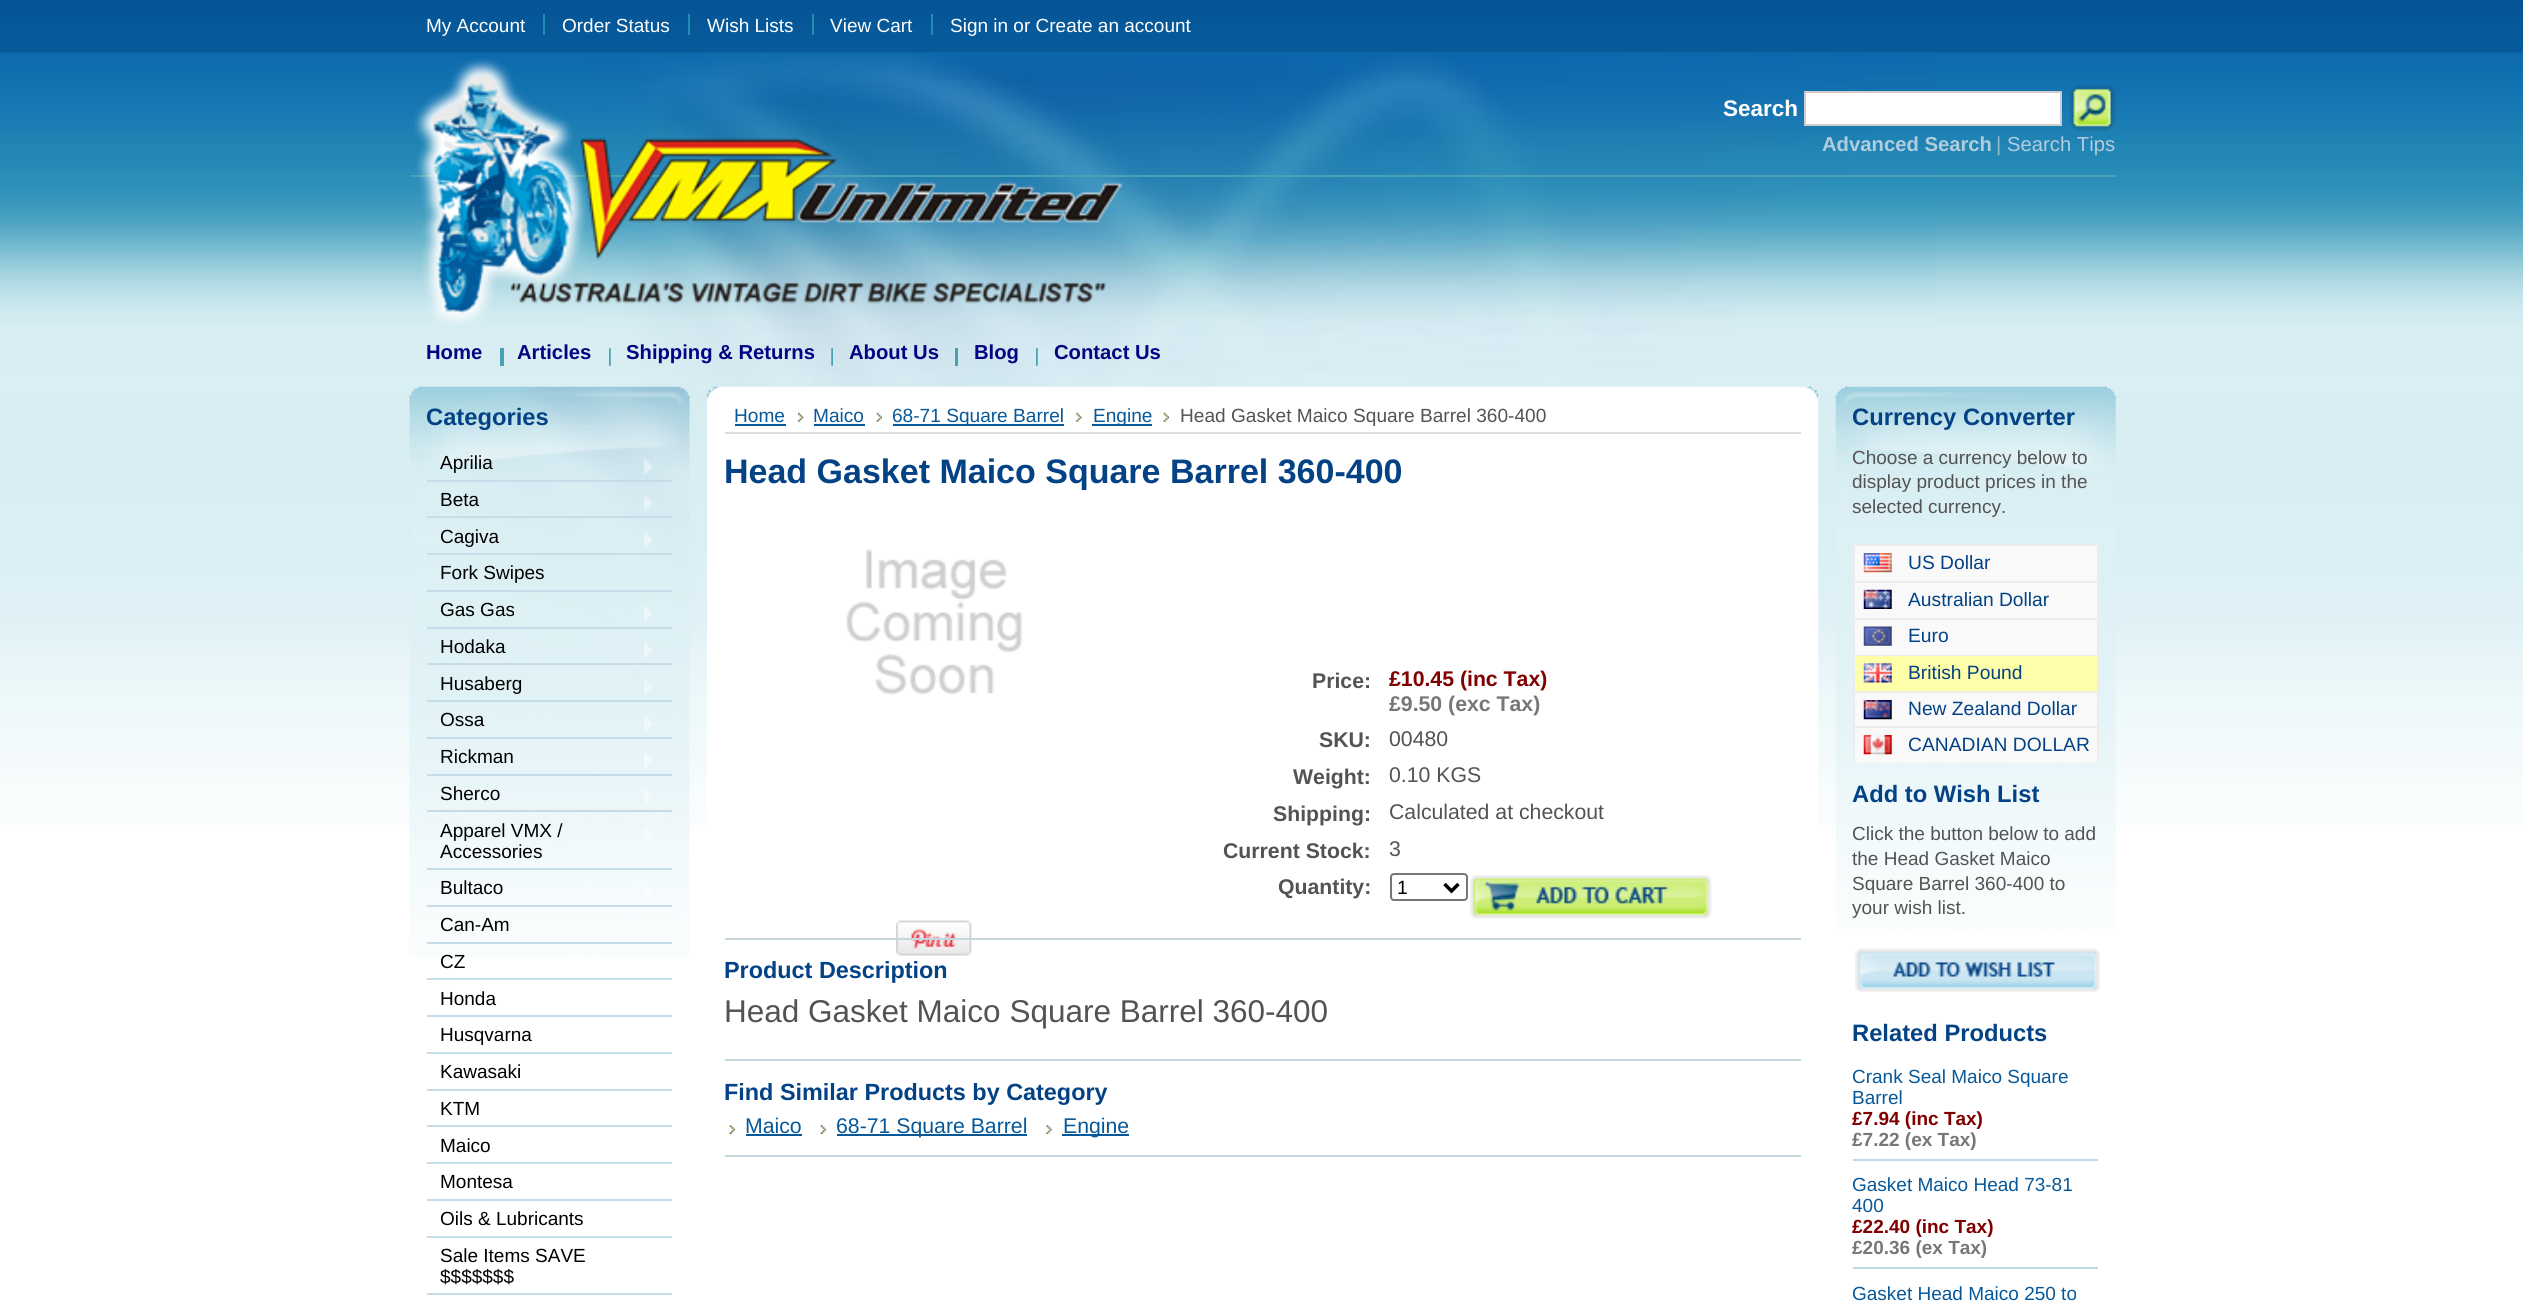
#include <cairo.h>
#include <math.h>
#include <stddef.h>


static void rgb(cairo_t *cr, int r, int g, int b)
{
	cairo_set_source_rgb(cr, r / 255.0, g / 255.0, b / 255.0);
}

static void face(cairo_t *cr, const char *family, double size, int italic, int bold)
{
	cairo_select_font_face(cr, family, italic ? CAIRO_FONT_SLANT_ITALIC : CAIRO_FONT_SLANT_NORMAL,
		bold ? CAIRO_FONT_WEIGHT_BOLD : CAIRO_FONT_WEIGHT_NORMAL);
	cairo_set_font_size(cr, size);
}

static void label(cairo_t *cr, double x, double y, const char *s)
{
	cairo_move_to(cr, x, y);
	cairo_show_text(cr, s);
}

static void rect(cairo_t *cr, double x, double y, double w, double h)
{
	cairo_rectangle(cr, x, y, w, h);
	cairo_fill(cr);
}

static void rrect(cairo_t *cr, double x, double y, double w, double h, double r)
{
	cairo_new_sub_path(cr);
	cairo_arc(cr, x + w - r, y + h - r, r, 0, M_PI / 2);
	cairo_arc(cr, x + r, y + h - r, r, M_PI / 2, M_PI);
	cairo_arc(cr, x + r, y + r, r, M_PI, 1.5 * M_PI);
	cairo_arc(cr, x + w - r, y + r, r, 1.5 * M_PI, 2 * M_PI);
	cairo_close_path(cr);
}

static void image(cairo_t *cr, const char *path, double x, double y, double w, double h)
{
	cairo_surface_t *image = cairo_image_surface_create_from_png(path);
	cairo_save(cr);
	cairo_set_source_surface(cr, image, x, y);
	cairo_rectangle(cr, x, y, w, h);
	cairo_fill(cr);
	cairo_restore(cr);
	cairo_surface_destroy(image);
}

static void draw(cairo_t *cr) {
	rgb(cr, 255, 255, 255);
	cairo_paint(cr);
	image(cr, "image0.png", 0, 0, 2523, 825);
	face(cr, "Liberation Sans", 19, 0, 0);
	rgb(cr, 255, 255, 255);
	label(cr, 426, 32, "My Account");
	rgb(cr, 32, 141, 181);
	rect(cr, 543, 14, 2, 21);
	rgb(cr, 255, 255, 255);
	label(cr, 562, 32, "Order Status");
	rgb(cr, 32, 141, 181);
	rect(cr, 688, 14, 2, 21);
	rgb(cr, 255, 255, 255);
	label(cr, 707, 32, "Wish Lists");
	rgb(cr, 32, 141, 181);
	rect(cr, 812, 14, 2, 21);
	rgb(cr, 255, 255, 255);
	label(cr, 830, 32, "View Cart");
	rgb(cr, 32, 141, 181);
	rect(cr, 931, 14, 2, 21);
	rgb(cr, 255, 255, 255);
	label(cr, 950, 32, "Sign in or Create an account");
	image(cr, "image1.png", 588, 54, 1347, 386);
	rgb(cr, 74, 161, 178);
	rect(cr, 410, 175, 1706, 2);
	image(cr, "image2.png", 414, 58, 709, 268);
	face(cr, "Liberation Sans", 22.5, 0, 1);
	rgb(cr, 255, 255, 255);
	label(cr, 1723, 116, "Search");
	cairo_rectangle(cr, 1805, 92, 256, 33);
	cairo_fill_preserve(cr);
	rgb(cr, 204, 204, 204);
	cairo_stroke(cr);
	image(cr, "image3.png", 2069, 85, 47, 46);
	face(cr, "Liberation Sans", 20.25, 0, 1);
	rgb(cr, 177, 204, 220);
	label(cr, 1822, 151, "Advanced Search");
	face(cr, "Liberation Sans", 20.25, 0, 0);
	rgb(cr, 149, 187, 209);
	label(cr, 1996, 151, "|");
	rgb(cr, 177, 204, 220);
	label(cr, 2007, 151, "Search Tips");
	face(cr, "Liberation Sans", 20.25, 0, 1);
	rgb(cr, 5, 2, 131);
	label(cr, 426, 359, "Home");
	rgb(cr, 74, 161, 178);
	rect(cr, 500, 348, 4, 18);
	rgb(cr, 5, 2, 131);
	label(cr, 517, 359, "Articles");
	image(cr, "image4.png", 609, 348, 2, 18);
	label(cr, 626, 359, "Shipping & Returns");
	image(cr, "image5.png", 831, 348, 2, 18);
	label(cr, 849, 359, "About Us");
	rgb(cr, 74, 161, 178);
	rect(cr, 955, 348, 3, 18);
	rgb(cr, 5, 2, 131);
	label(cr, 974, 359, "Blog");
	image(cr, "image6.png", 1036, 348, 2, 18);
	label(cr, 1054, 359, "Contact Us");
	image(cr, "image7.png", 409, 386, 281, 572);
	face(cr, "Liberation Sans", 23.75, 0, 1);
	rgb(cr, 3, 66, 133);
	label(cr, 426, 425, "Categories");
	rgb(cr, 197, 221, 233);
	rect(cr, 427, 480, 245, 2);
	face(cr, "Liberation Sans", 19, 0, 0);
	rgb(cr, 0, 0, 0);
	label(cr, 440, 469, "Aprilia");
	image(cr, "image8.png", 643, 458, 10, 16);
	rgb(cr, 197, 221, 233);
	rect(cr, 427, 516, 245, 2);
	rgb(cr, 0, 0, 0);
	label(cr, 440, 506, "Beta");
	image(cr, "image9.png", 644, 495, 9, 16);
	rgb(cr, 197, 221, 233);
	rect(cr, 427, 553, 245, 2);
	rgb(cr, 0, 0, 0);
	label(cr, 440, 543, "Cagiva");
	image(cr, "image10.png", 644, 532, 9, 16);
	rgb(cr, 197, 221, 233);
	rect(cr, 427, 590, 245, 2);
	rgb(cr, 0, 0, 0);
	label(cr, 440, 579, "Fork Swipes");
	rgb(cr, 197, 221, 233);
	rect(cr, 427, 627, 245, 2);
	rgb(cr, 0, 0, 0);
	label(cr, 440, 616, "Gas Gas");
	image(cr, "image11.png", 644, 605, 9, 16);
	rgb(cr, 197, 221, 233);
	rect(cr, 427, 663, 245, 2);
	rgb(cr, 0, 0, 0);
	label(cr, 440, 653, "Hodaka");
	image(cr, "image12.png", 644, 642, 9, 16);
	rgb(cr, 197, 221, 233);
	rect(cr, 427, 700, 245, 2);
	rgb(cr, 0, 0, 0);
	label(cr, 440, 690, "Husaberg");
	image(cr, "image13.png", 644, 679, 9, 16);
	rgb(cr, 197, 221, 233);
	rect(cr, 427, 737, 245, 2);
	rgb(cr, 0, 0, 0);
	label(cr, 440, 726, "Ossa");
	image(cr, "image14.png", 644, 716, 9, 16);
	rgb(cr, 197, 221, 233);
	rect(cr, 427, 774, 245, 2);
	rgb(cr, 0, 0, 0);
	label(cr, 440, 763, "Rickman");
	image(cr, "image15.png", 644, 752, 9, 16);
	rgb(cr, 197, 221, 233);
	rect(cr, 427, 810, 245, 2);
	rgb(cr, 0, 0, 0);
	label(cr, 440, 800, "Sherco");
	image(cr, "image16.png", 644, 789, 9, 16);
	rgb(cr, 197, 221, 233);
	rect(cr, 427, 868, 245, 2);
	rgb(cr, 0, 0, 0);
	label(cr, 440, 837, "Apparel VMX /");
	image(cr, "image17.png", 644, 826, 8, 15);
	label(cr, 440, 858, "Accessories");
	rgb(cr, 197, 221, 233);
	rect(cr, 427, 905, 245, 2);
	rgb(cr, 0, 0, 0);
	label(cr, 440, 894, "Bultaco");
	image(cr, "image18.png", 645, 885, 7, 13);
	rgb(cr, 197, 221, 233);
	rect(cr, 427, 942, 245, 2);
	rgb(cr, 0, 0, 0);
	label(cr, 440, 931, "Can-Am");
	rgb(cr, 197, 221, 233);
	rect(cr, 427, 978, 245, 2);
	rgb(cr, 0, 0, 0);
	label(cr, 440, 968, "CZ");
	rgb(cr, 197, 221, 233);
	rect(cr, 427, 1015, 245, 2);
	rgb(cr, 0, 0, 0);
	label(cr, 440, 1005, "Honda");
	rgb(cr, 197, 221, 233);
	rect(cr, 427, 1052, 245, 2);
	rgb(cr, 0, 0, 0);
	label(cr, 440, 1041, "Husqvarna");
	rgb(cr, 197, 221, 233);
	rect(cr, 427, 1089, 245, 2);
	rgb(cr, 0, 0, 0);
	label(cr, 440, 1078, "Kawasaki");
	rgb(cr, 197, 221, 233);
	rect(cr, 427, 1125, 245, 2);
	rgb(cr, 0, 0, 0);
	label(cr, 440, 1115, "KTM");
	rgb(cr, 197, 221, 233);
	rect(cr, 427, 1162, 245, 2);
	rgb(cr, 0, 0, 0);
	label(cr, 440, 1152, "Maico");
	rgb(cr, 197, 221, 233);
	rect(cr, 427, 1199, 245, 2);
	rgb(cr, 0, 0, 0);
	label(cr, 440, 1188, "Montesa");
	rgb(cr, 197, 221, 233);
	rect(cr, 427, 1236, 245, 2);
	rgb(cr, 0, 0, 0);
	label(cr, 440, 1225, "Oils & Lubricants");
	rgb(cr, 197, 221, 233);
	rect(cr, 427, 1293, 245, 2);
	rgb(cr, 0, 0, 0);
	label(cr, 440, 1262, "Sale Items SAVE");
	label(cr, 440, 1283, "$$$$$$$");
	image(cr, "image19.png", 707, 386, 1112, 439);
	rgb(cr, 220, 223, 226);
	rect(cr, 725, 432, 1076, 2);
	face(cr, "Liberation Sans", 19.1, 0, 0);
	rgb(cr, 7, 88, 153);
	label(cr, 734, 422, "Home");
	rect(cr, 735, 424, 51, 2);
	image(cr, "image20.png", 798, 412, 6, 10);
	label(cr, 813, 422, "Maico");
	rect(cr, 814, 424, 51, 2);
	image(cr, "image21.png", 876, 412, 6, 10);
	rect(cr, 893, 424, 171, 2);
	label(cr, 892, 422, "68-71 Square Barrel");
	image(cr, "image22.png", 1076, 412, 6, 10);
	rect(cr, 1092, 424, 60, 2);
	label(cr, 1093, 422, "Engine");
	image(cr, "image23.png", 1163, 412, 6, 10);
	rgb(cr, 83, 83, 83);
	label(cr, 1180, 422, "Head Gasket Maico Square Barrel 360-400");
	face(cr, "Liberation Sans", 34, 0, 1);
	rgb(cr, 3, 66, 133);
	label(cr, 724, 483, "Head Gasket Maico Square Barrel 360-400");
	image(cr, "image24.png", 846, 549, 177, 146);
	image(cr, "image25.png", 896, 920, 76, 36);
	face(cr, "Liberation Sans", 21.25, 0, 1);
	rgb(cr, 83, 83, 83);
	label(cr, 1312, 688, "Price:");
	rgb(cr, 128, 0, 0);
	label(cr, 1389, 686, "£10.45 (inc Tax)");
	rgb(cr, 119, 119, 119);
	label(cr, 1389, 711, "£9.50 (exc Tax)");
	rgb(cr, 83, 83, 83);
	label(cr, 1319, 747, "SKU:");
	face(cr, "Liberation Sans", 21.25, 0, 0);
	label(cr, 1389, 746, "00480");
	face(cr, "Liberation Sans", 21.25, 0, 1);
	label(cr, 1293, 784, "Weight:");
	face(cr, "Liberation Sans", 21.25, 0, 0);
	label(cr, 1389, 782, "0.10 KGS");
	face(cr, "Liberation Sans", 21.25, 0, 1);
	label(cr, 1273, 821, "Shipping:");
	face(cr, "Liberation Sans", 21.25, 0, 0);
	label(cr, 1389, 819, "Calculated at checkout");
	face(cr, "Liberation Sans", 21.25, 0, 1);
	label(cr, 1223, 858, "Current Stock:");
	face(cr, "Liberation Sans", 21.25, 0, 0);
	label(cr, 1389, 856, "3");
	face(cr, "Liberation Sans", 21.25, 0, 1);
	label(cr, 1278, 894, "Quantity:");
	rrect(cr, 1391, 874, 76, 26, 3);
	rgb(cr, 118, 118, 118);
	cairo_stroke(cr);
	cairo_new_path(cr);
	cairo_move_to(cr, 1444.5, 884);
	cairo_line_to(cr, 1451.5, 891);
	cairo_line_to(cr, 1458.5, 884);
	rgb(cr, 0, 0, 0);
	cairo_set_line_width(cr, 3.5);
	cairo_stroke(cr);
	face(cr, "Liberation Sans", 19.25, 0, 0);
	label(cr, 1397, 894, "1");
	image(cr, "image26.png", 1470, 875, 242, 44);
	rgb(cr, 199, 215, 219);
	rect(cr, 725, 938, 1076, 2);
	face(cr, "Liberation Sans", 23.4, 0, 1);
	rgb(cr, 3, 66, 133);
	label(cr, 724, 978, "Product Description");
	face(cr, "Liberation Sans", 31.5, 0, 0);
	rgb(cr, 83, 83, 83);
	label(cr, 724, 1022, "Head Gasket Maico Square Barrel 360-400");
	rgb(cr, 199, 215, 219);
	rect(cr, 725, 1059, 1076, 2);
	face(cr, "Liberation Sans", 23.4, 0, 1);
	rgb(cr, 3, 66, 133);
	label(cr, 724, 1100, "Find Similar Products by Category");
	image(cr, "image27.png", 729, 1124, 6, 10);
	face(cr, "Liberation Sans", 21.25, 0, 0);
	rgb(cr, 7, 88, 153);
	label(cr, 745, 1133, "Maico");
	rect(cr, 746, 1134, 56, 2);
	image(cr, "image27.png", 820, 1124, 6, 10);
	rect(cr, 837, 1134, 190, 2);
	label(cr, 836, 1133, "68-71 Square Barrel");
	image(cr, "image28.png", 1046, 1124, 6, 10);
	rect(cr, 1062, 1134, 67, 2);
	label(cr, 1063, 1133, "Engine");
	rgb(cr, 199, 215, 219);
	rect(cr, 725, 1155, 1076, 2);
	image(cr, "image29.png", 1835, 386, 281, 544);
	face(cr, "Liberation Sans", 23.75, 0, 1);
	rgb(cr, 3, 66, 133);
	label(cr, 1852, 425, "Currency Converter");
	face(cr, "Liberation Sans", 19, 0, 0);
	rgb(cr, 83, 83, 83);
	label(cr, 1852, 464, "Choose a currency below to");
	label(cr, 1852, 488, "display product prices in the");
	label(cr, 1852, 513, "selected currency.");
	rgb(cr, 249, 249, 249);
	rect(cr, 1855, 546, 242, 35);
	rgb(cr, 237, 236, 236);
	rect(cr, 1853, 544, 245, 2);
	rect(cr, 2097, 544, 2, 37);
	rect(cr, 1853, 544, 2, 37);
	image(cr, "image30.png", 1863, 553, 29, 20);
	face(cr, "Liberation Sans", 19.25, 0, 0);
	rgb(cr, 3, 66, 133);
	label(cr, 1908, 569, "US Dollar");
	rgb(cr, 249, 249, 249);
	rect(cr, 1855, 583, 242, 35);
	rgb(cr, 237, 236, 236);
	rect(cr, 1853, 581, 245, 2);
	rect(cr, 2097, 581, 2, 37);
	rect(cr, 1853, 581, 2, 37);
	image(cr, "image31.png", 1863, 589, 29, 20);
	rgb(cr, 3, 66, 133);
	label(cr, 1908, 606, "Australian Dollar");
	rgb(cr, 249, 249, 249);
	rect(cr, 1855, 620, 242, 35);
	rgb(cr, 237, 236, 236);
	rect(cr, 1853, 618, 245, 2);
	rect(cr, 2097, 618, 2, 37);
	rect(cr, 1853, 618, 2, 37);
	image(cr, "image32.png", 1863, 626, 29, 20);
	rgb(cr, 3, 66, 133);
	label(cr, 1908, 642, "Euro");
	rgb(cr, 237, 236, 236);
	rect(cr, 1853, 655, 245, 1);
	rect(cr, 2097, 655, 2, 36);
	rect(cr, 1853, 655, 2, 36);
	rgb(cr, 255, 255, 170);
	rect(cr, 1855, 656, 242, 35);
	image(cr, "image33.png", 1863, 663, 29, 20);
	rgb(cr, 3, 66, 133);
	label(cr, 1908, 679, "British Pound");
	rgb(cr, 249, 249, 249);
	rect(cr, 1855, 693, 242, 33);
	rgb(cr, 237, 236, 236);
	rect(cr, 1853, 691, 245, 2);
	rect(cr, 2097, 691, 2, 35);
	rect(cr, 1853, 691, 2, 35);
	image(cr, "image34.png", 1863, 700, 29, 20);
	rgb(cr, 3, 66, 133);
	label(cr, 1908, 715, "New Zealand Dollar");
	rgb(cr, 249, 249, 249);
	rect(cr, 1855, 728, 242, 35);
	rgb(cr, 237, 236, 236);
	rect(cr, 1853, 726, 245, 2);
	rect(cr, 2097, 726, 2, 37);
	rect(cr, 1853, 726, 2, 37);
	image(cr, "image35.png", 1863, 735, 29, 20);
	rgb(cr, 3, 66, 133);
	label(cr, 1908, 751, "CANADIAN DOLLAR");
	face(cr, "Liberation Sans", 23.75, 0, 1);
	label(cr, 1852, 802, "Add to Wish List");
	face(cr, "Liberation Sans", 19, 0, 0);
	rgb(cr, 83, 83, 83);
	label(cr, 1852, 840, "Click the button below to add");
	label(cr, 1852, 865, "the Head Gasket Maico");
	label(cr, 1852, 890, "Square Barrel 360-400 to");
	label(cr, 1852, 914, "your wish list.");
	image(cr, "image36.png", 1855, 948, 245, 44);
	face(cr, "Liberation Sans", 23.75, 0, 1);
	rgb(cr, 3, 66, 133);
	label(cr, 1852, 1041, "Related Products");
	rgb(cr, 192, 218, 231);
	rect(cr, 1853, 1159, 245, 2);
	face(cr, "Liberation Sans", 19, 0, 0);
	rgb(cr, 7, 88, 153);
	label(cr, 1852, 1083, "Crank Seal Maico Square");
	label(cr, 1852, 1104, "Barrel");
	face(cr, "Liberation Sans", 19, 0, 1);
	rgb(cr, 128, 0, 0);
	label(cr, 1852, 1125, "£7.94 (inc Tax)");
	rgb(cr, 119, 119, 119);
	label(cr, 1852, 1146, "£7.22 (ex Tax)");
	rgb(cr, 192, 218, 231);
	rect(cr, 1853, 1267, 245, 2);
	face(cr, "Liberation Sans", 19, 0, 0);
	rgb(cr, 7, 88, 153);
	label(cr, 1852, 1191, "Gasket Maico Head 73-81");
	label(cr, 1852, 1212, "400");
	face(cr, "Liberation Sans", 19, 0, 1);
	rgb(cr, 128, 0, 0);
	label(cr, 1852, 1233, "£22.40 (inc Tax)");
	rgb(cr, 119, 119, 119);
	label(cr, 1852, 1254, "£20.36 (ex Tax)");
	face(cr, "Liberation Sans", 19, 0, 0);
	rgb(cr, 7, 88, 153);
	label(cr, 1852, 1300, "Gasket Head Maico 250 to");
}

int main(void) {
	cairo_surface_t *surface = cairo_image_surface_create(CAIRO_FORMAT_RGB24, 2523, 1311);
	cairo_t *cr = cairo_create(surface);
	cairo_font_options_t *options = cairo_font_options_create();
	cairo_font_options_set_hint_metrics(options, CAIRO_HINT_METRICS_OFF);
	cairo_font_options_set_hint_style(options, CAIRO_HINT_STYLE_NONE);
	cairo_set_font_options(cr, options);
	cairo_set_miter_limit(cr, 4);
	draw(cr);
	cairo_surface_write_to_png(surface, "render.png");
	cairo_font_options_destroy(options);
	cairo_destroy(cr);
	cairo_surface_destroy(surface);
	return 0;
}
